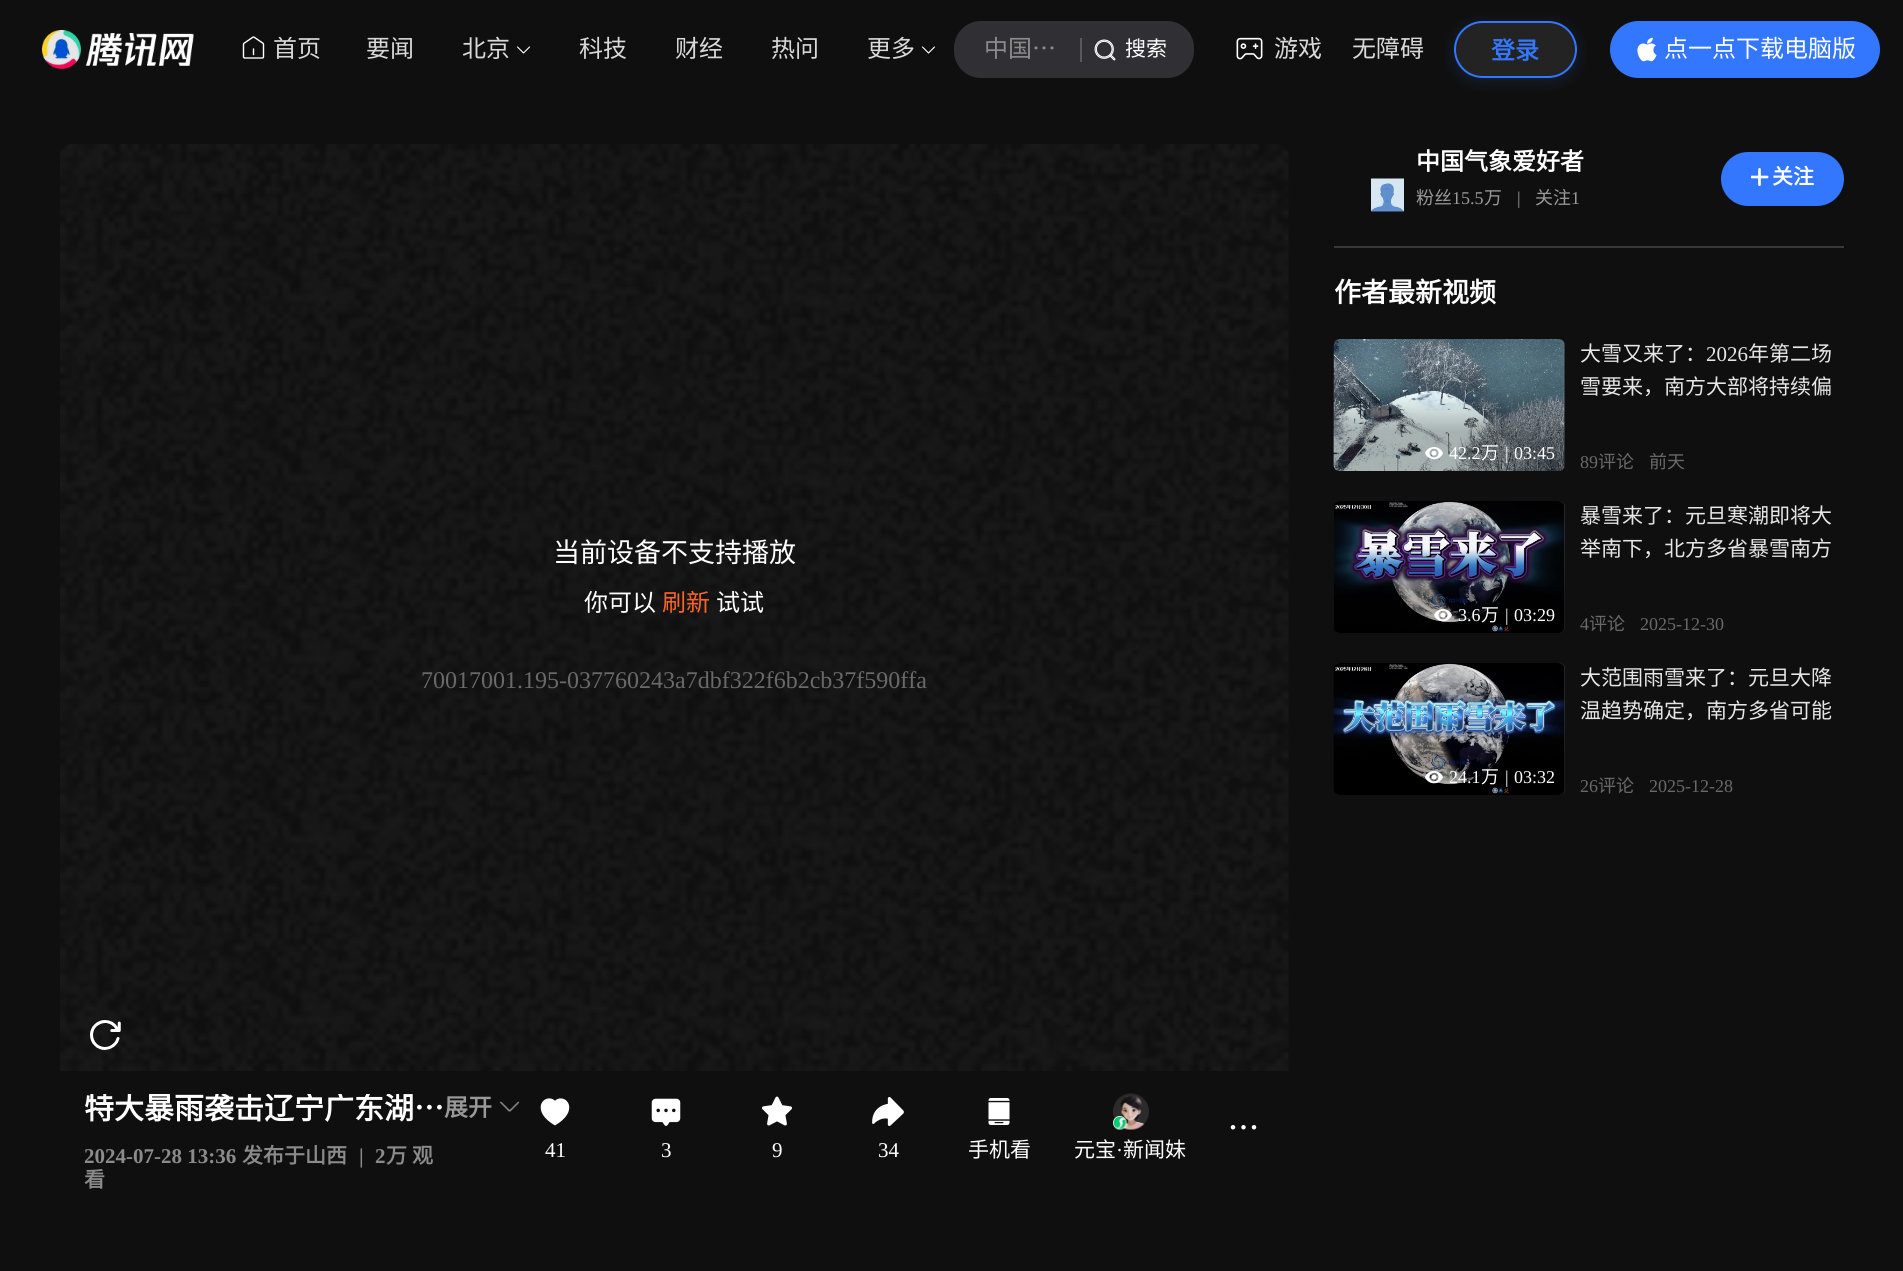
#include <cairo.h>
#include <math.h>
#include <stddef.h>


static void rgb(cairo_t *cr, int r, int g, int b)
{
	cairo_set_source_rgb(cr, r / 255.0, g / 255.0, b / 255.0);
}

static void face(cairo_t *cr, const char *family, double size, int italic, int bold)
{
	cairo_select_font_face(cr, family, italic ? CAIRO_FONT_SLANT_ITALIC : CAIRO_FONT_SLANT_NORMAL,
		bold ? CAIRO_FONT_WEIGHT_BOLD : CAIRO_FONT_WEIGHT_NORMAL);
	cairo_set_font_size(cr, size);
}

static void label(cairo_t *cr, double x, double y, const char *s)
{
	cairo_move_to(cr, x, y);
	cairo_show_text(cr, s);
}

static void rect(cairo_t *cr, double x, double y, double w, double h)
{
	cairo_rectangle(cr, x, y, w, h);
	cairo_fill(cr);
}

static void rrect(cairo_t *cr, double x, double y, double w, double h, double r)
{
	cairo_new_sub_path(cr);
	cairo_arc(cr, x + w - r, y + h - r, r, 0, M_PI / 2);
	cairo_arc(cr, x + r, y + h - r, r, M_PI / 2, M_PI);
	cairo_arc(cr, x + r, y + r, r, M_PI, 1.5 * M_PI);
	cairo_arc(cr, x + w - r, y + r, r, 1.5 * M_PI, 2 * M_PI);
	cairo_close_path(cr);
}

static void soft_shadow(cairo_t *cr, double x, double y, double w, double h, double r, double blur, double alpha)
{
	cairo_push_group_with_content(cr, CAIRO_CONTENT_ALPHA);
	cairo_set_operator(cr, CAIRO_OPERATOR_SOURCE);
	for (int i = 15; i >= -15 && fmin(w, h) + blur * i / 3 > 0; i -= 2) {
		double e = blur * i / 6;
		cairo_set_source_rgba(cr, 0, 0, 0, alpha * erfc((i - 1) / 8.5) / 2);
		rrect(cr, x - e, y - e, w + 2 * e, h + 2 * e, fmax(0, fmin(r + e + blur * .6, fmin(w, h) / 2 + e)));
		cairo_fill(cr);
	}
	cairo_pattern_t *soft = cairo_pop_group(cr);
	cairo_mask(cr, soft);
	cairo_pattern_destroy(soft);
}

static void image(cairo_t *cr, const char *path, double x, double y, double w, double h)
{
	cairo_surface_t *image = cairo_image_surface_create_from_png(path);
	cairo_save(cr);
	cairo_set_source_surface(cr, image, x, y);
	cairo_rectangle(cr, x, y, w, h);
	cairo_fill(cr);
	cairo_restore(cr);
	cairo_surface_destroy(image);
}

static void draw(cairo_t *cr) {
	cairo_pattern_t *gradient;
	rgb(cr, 15, 15, 15);
	cairo_paint(cr);
	image(cr, "image0.png", 42, 30, 152, 39);
	image(cr, "image1.png", 242, 36, 23, 23);
	face(cr, "Noto Sans CJK SC", 24, 0, 0);
	rgb(cr, 217, 217, 217);
	label(cr, 273, 57, "首页");
	label(cr, 366, 57, "要闻");
	label(cr, 462, 57, "北京");
	cairo_new_path(cr);
	cairo_move_to(cr, 529.5, 47);
	cairo_line_to(cr, 523.5, 53);
	cairo_line_to(cr, 517.5, 47);
	rgb(cr, 255, 255, 255);
	cairo_set_line_width(cr, 1.1);
	cairo_set_line_cap(cr, CAIRO_LINE_CAP_ROUND);
	cairo_set_line_join(cr, CAIRO_LINE_JOIN_ROUND);
	cairo_stroke(cr);
	rgb(cr, 217, 217, 217);
	label(cr, 579, 57, "科技");
	label(cr, 675, 57, "财经");
	label(cr, 771, 57, "热问");
	label(cr, 867, 57, "更多");
	cairo_new_path(cr);
	cairo_move_to(cr, 934.5, 47);
	cairo_line_to(cr, 928.5, 53);
	cairo_line_to(cr, 922.5, 47);
	rgb(cr, 255, 255, 255);
	cairo_stroke(cr);
	rgb(cr, 47, 47, 52);
	rrect(cr, 954, 21, 240, 57, 27);
	cairo_fill(cr);
	rgb(cr, 139, 139, 139);
	label(cr, 984, 57, "中国…");
	rgb(cr, 89, 89, 93);
	rect(cr, 1080, 38, 2, 24);
	image(cr, "image2.png", 1094, 39, 22, 22);
	face(cr, "Noto Sans CJK SC", 21, 0, 0);
	rgb(cr, 255, 255, 255);
	label(cr, 1125, 56, "搜索");
	image(cr, "image3.png", 1236, 37, 27, 23);
	face(cr, "Noto Sans CJK SC", 24, 0, 0);
	rgb(cr, 217, 217, 217);
	label(cr, 1274, 57, "游戏");
	label(cr, 1352, 57, "无障碍");
	cairo_save(cr);
	cairo_set_fill_rule(cr, CAIRO_FILL_RULE_EVEN_ODD);
	cairo_new_path(cr);
	cairo_move_to(cr, 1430, 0);
	cairo_line_to(cr, 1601, 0);
	cairo_line_to(cr, 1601, 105);
	cairo_line_to(cr, 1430, 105);
	cairo_close_path(cr);
	cairo_move_to(cr, 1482.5, 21);
	cairo_line_to(cr, 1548.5, 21);
	cairo_curve_to(cr, 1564, 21, 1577, 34, 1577, 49.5);
	cairo_curve_to(cr, 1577, 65, 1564, 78, 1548.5, 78);
	cairo_line_to(cr, 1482.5, 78);
	cairo_curve_to(cr, 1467, 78, 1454, 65, 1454, 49.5);
	cairo_curve_to(cr, 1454, 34, 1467, 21, 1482.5, 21);
	cairo_close_path(cr);
	cairo_clip(cr);
	rgb(cr, 51, 119, 255);
	soft_shadow(cr, 1454, 24, 123, 57, 28.5, 7.5, 0.16);
	cairo_restore(cr);
	cairo_set_source_rgba(cr, 0.851, 0.851, 0.851, 0.1);
	rrect(cr, 1455, 22, 121, 55, 27.5);
	cairo_fill_preserve(cr);
	rgb(cr, 51, 119, 255);
	cairo_set_line_width(cr, 2);
	cairo_set_line_cap(cr, CAIRO_LINE_CAP_BUTT);
	cairo_set_line_join(cr, CAIRO_LINE_JOIN_MITER);
	cairo_stroke(cr);
	face(cr, "Noto Sans CJK SC", 24, 0, 1);
	label(cr, 1491, 59, "登录");
	rrect(cr, 1610, 21, 270, 57, 28.5);
	cairo_fill(cr);
	image(cr, "image4.png", 1637, 37, 20, 25);
	face(cr, "Noto Sans CJK SC", 24, 0, 0);
	rgb(cr, 255, 255, 255);
	label(cr, 1664, 57, "点一点下载电脑版");
	face(cr, "Noto Sans CJK SC", 24, 0, 1);
	label(cr, 1416, 170, "中国气象爱好者");
	face(cr, "Noto Sans CJK SC", 18, 0, 0);
	rgb(cr, 153, 153, 153);
	label(cr, 1416, 204, "粉丝");
	face(cr, "Liberation Serif", 18, 0, 0);
	label(cr, 1452, 204, "15.5");
	face(cr, "Noto Sans CJK SC", 18, 0, 0);
	label(cr, 1484, 204, "万");
	face(cr, "Liberation Serif", 18, 0, 0);
	label(cr, 1517, 204, "|");
	face(cr, "Noto Sans CJK SC", 18, 0, 0);
	label(cr, 1535, 204, "关注");
	face(cr, "Liberation Serif", 18, 0, 0);
	label(cr, 1571, 204, "1");
	rgb(cr, 51, 119, 255);
	rrect(cr, 1721, 152, 123, 54, 27);
	cairo_fill(cr);
	image(cr, "image5.png", 1751, 168, 18, 18);
	face(cr, "Noto Sans CJK SC", 21, 0, 1);
	rgb(cr, 255, 255, 255);
	label(cr, 1772, 184, "关注");
	image(cr, "image6.png", 1371, 178, 33, 34);
	rgb(cr, 56, 56, 56);
	rect(cr, 1334, 246, 510, 2);
	face(cr, "Noto Sans CJK SC", 27, 0, 1);
	rgb(cr, 255, 255, 255);
	label(cr, 1334, 302, "作者最新视频");
	rgb(cr, 51, 51, 51);
	rrect(cr, 1334, 339, 231, 132, 6);
	cairo_fill(cr);
	image(cr, "image7.png", 1333, 339, 232, 132);
	gradient = cairo_pattern_create_linear(1449, 471, 1449, 339);
	cairo_pattern_add_color_stop_rgba(gradient, 0.3, 0, 0, 0, 0.3);
	cairo_pattern_add_color_stop_rgba(gradient, 0.6, 0, 0, 0, 0);
	cairo_set_source(cr, gradient);
	cairo_pattern_destroy(gradient);
	rrect(cr, 1334, 339, 231, 132, 6);
	cairo_fill(cr);
	image(cr, "image8.png", 1425, 447, 18, 13);
	face(cr, "Liberation Serif", 18, 0, 0);
	rgb(cr, 255, 255, 255);
	label(cr, 1449, 459, "42.2");
	face(cr, "Noto Sans CJK SC", 18, 0, 0);
	label(cr, 1481, 459, "万");
	face(cr, "Liberation Serif", 18, 0, 0);
	label(cr, 1505, 459, "|");
	label(cr, 1514, 459, "03:45");
	face(cr, "Noto Sans CJK SC", 21, 0, 0);
	rgb(cr, 230, 230, 230);
	label(cr, 1580, 361, "大雪又来了：");
	face(cr, "Liberation Serif", 21, 0, 0);
	label(cr, 1706, 361, "2026");
	face(cr, "Noto Sans CJK SC", 21, 0, 0);
	label(cr, 1748, 361, "年第二场");
	label(cr, 1580, 394, "雪要来，南方大部将持续偏");
	face(cr, "Liberation Serif", 18, 0, 0);
	rgb(cr, 105, 105, 105);
	label(cr, 1580, 468, "89");
	face(cr, "Noto Sans CJK SC", 18, 0, 0);
	label(cr, 1598, 468, "评论");
	label(cr, 1649, 468, "前天");
	rgb(cr, 51, 51, 51);
	rrect(cr, 1334, 501, 231, 132, 6);
	cairo_fill(cr);
	image(cr, "image9.png", 1334, 501, 231, 132);
	gradient = cairo_pattern_create_linear(1449, 633, 1449, 501);
	cairo_pattern_add_color_stop_rgba(gradient, 0.3, 0, 0, 0, 0.3);
	cairo_pattern_add_color_stop_rgba(gradient, 0.6, 0, 0, 0, 0);
	cairo_set_source(cr, gradient);
	cairo_pattern_destroy(gradient);
	rrect(cr, 1334, 501, 231, 132, 6);
	cairo_fill(cr);
	image(cr, "image10.png", 1434, 609, 18, 13);
	face(cr, "Liberation Serif", 18, 0, 0);
	rgb(cr, 255, 255, 255);
	label(cr, 1458, 621, "3.6");
	face(cr, "Noto Sans CJK SC", 18, 0, 0);
	label(cr, 1481, 621, "万");
	face(cr, "Liberation Serif", 18, 0, 0);
	label(cr, 1505, 621, "|");
	label(cr, 1514, 621, "03:29");
	face(cr, "Noto Sans CJK SC", 21, 0, 0);
	rgb(cr, 230, 230, 230);
	label(cr, 1580, 523, "暴雪来了：元旦寒潮即将大");
	label(cr, 1580, 556, "举南下，北方多省暴雪南方");
	face(cr, "Liberation Serif", 18, 0, 0);
	rgb(cr, 105, 105, 105);
	label(cr, 1580, 630, "4");
	face(cr, "Noto Sans CJK SC", 18, 0, 0);
	label(cr, 1589, 630, "评论");
	face(cr, "Liberation Serif", 18, 0, 0);
	label(cr, 1640, 630, "2025-12-30");
	rgb(cr, 51, 51, 51);
	rrect(cr, 1334, 663, 231, 132, 6);
	cairo_fill(cr);
	image(cr, "image11.png", 1333, 663, 232, 132);
	gradient = cairo_pattern_create_linear(1449, 795, 1449, 663);
	cairo_pattern_add_color_stop_rgba(gradient, 0.3, 0, 0, 0, 0.3);
	cairo_pattern_add_color_stop_rgba(gradient, 0.6, 0, 0, 0, 0);
	cairo_set_source(cr, gradient);
	cairo_pattern_destroy(gradient);
	rrect(cr, 1334, 663, 231, 132, 6);
	cairo_fill(cr);
	image(cr, "image12.png", 1425, 771, 18, 13);
	rgb(cr, 255, 255, 255);
	label(cr, 1449, 783, "24.1");
	face(cr, "Noto Sans CJK SC", 18, 0, 0);
	label(cr, 1481, 783, "万");
	face(cr, "Liberation Serif", 18, 0, 0);
	label(cr, 1505, 783, "|");
	label(cr, 1514, 783, "03:32");
	face(cr, "Noto Sans CJK SC", 21, 0, 0);
	rgb(cr, 230, 230, 230);
	label(cr, 1580, 685, "大范围雨雪来了：元旦大降");
	label(cr, 1580, 718, "温趋势确定，南方多省可能");
	face(cr, "Liberation Serif", 18, 0, 0);
	rgb(cr, 105, 105, 105);
	label(cr, 1580, 792, "26");
	face(cr, "Noto Sans CJK SC", 18, 0, 0);
	label(cr, 1598, 792, "评论");
	face(cr, "Liberation Serif", 18, 0, 0);
	label(cr, 1649, 792, "2025-12-28");
	image(cr, "image13.png", 60, 144, 1229, 927);
	face(cr, "Noto Sans CJK SC", 27, 0, 0);
	rgb(cr, 255, 255, 255);
	label(cr, 553, 562, "当前设备不支持播放");
	face(cr, "Noto Sans CJK SC", 24, 0, 0);
	label(cr, 584, 611, "你可以");
	rgb(cr, 252, 101, 38);
	label(cr, 662, 611, "刷新");
	rgb(cr, 255, 255, 255);
	label(cr, 716, 611, "试试");
	face(cr, "Liberation Serif", 24, 0, 0);
	rgb(cr, 105, 105, 105);
	label(cr, 421, 688, "70017001.195-037760243a7dbf322f6b2cb37f590ffa");
	cairo_save(cr);
	cairo_rectangle(cr, 84, 1094, 360, 30);
	cairo_clip(cr);
	face(cr, "Noto Sans CJK SC", 30, 0, 1);
	rgb(cr, 255, 255, 255);
	label(cr, 84, 1119, "特大暴雨袭击辽宁广东湖…");
	cairo_restore(cr);
	face(cr, "Noto Sans CJK SC", 24, 0, 1);
	rgb(cr, 153, 153, 153);
	label(cr, 444, 1116, "展开");
	image(cr, "image14.png", 499, 1101, 20, 11);
	face(cr, "Liberation Serif", 21, 0, 1);
	rgb(cr, 139, 139, 139);
	label(cr, 84, 1163, "2024-07-28 13:36");
	face(cr, "Noto Sans CJK SC", 21, 0, 1);
	label(cr, 242, 1163, "发布于山西");
	face(cr, "Liberation Serif", 21, 0, 1);
	label(cr, 359, 1163, "|");
	label(cr, 375, 1163, "2");
	face(cr, "Noto Sans CJK SC", 21, 0, 1);
	label(cr, 386, 1163, "万");
	label(cr, 412, 1163, "观");
	label(cr, 84, 1187, "看");
	image(cr, "image15.png", 1230, 1125, 27, 5);
	image(cr, "image16.png", 540, 1098, 30, 28);
	face(cr, "Liberation Serif", 21, 0, 0);
	rgb(cr, 255, 255, 255);
	label(cr, 545, 1157, "41");
	image(cr, "image17.png", 651, 1098, 30, 28);
	label(cr, 661, 1157, "3");
	image(cr, "image18.png", 762, 1096, 30, 30);
	label(cr, 772, 1157, "9");
	image(cr, "image19.png", 872, 1097, 32, 29);
	label(cr, 878, 1157, "34");
	image(cr, "image20.png", 988, 1098, 22, 27);
	face(cr, "Noto Sans CJK SC", 21, 0, 0);
	label(cr, 968, 1157, "手机看");
	image(cr, "image21.png", 1113, 1093, 36, 37);
	image(cr, "image22.png", 1113, 1116, 14, 14);
	label(cr, 1074, 1157, "元宝");
	face(cr, "Liberation Serif", 21, 0, 0);
	label(cr, 1116, 1157, "·");
	face(cr, "Noto Sans CJK SC", 21, 0, 0);
	label(cr, 1123, 1157, "新闻妹");
}

int main(void) {
	cairo_surface_t *surface = cairo_image_surface_create(CAIRO_FORMAT_RGB24, 1903, 1271);
	cairo_t *cr = cairo_create(surface);
	cairo_font_options_t *options = cairo_font_options_create();
	cairo_font_options_set_hint_metrics(options, CAIRO_HINT_METRICS_OFF);
	cairo_font_options_set_hint_style(options, CAIRO_HINT_STYLE_NONE);
	cairo_set_font_options(cr, options);
	cairo_set_miter_limit(cr, 4);
	draw(cr);
	cairo_surface_write_to_png(surface, "render.png");
	cairo_font_options_destroy(options);
	cairo_destroy(cr);
	cairo_surface_destroy(surface);
	return 0;
}
